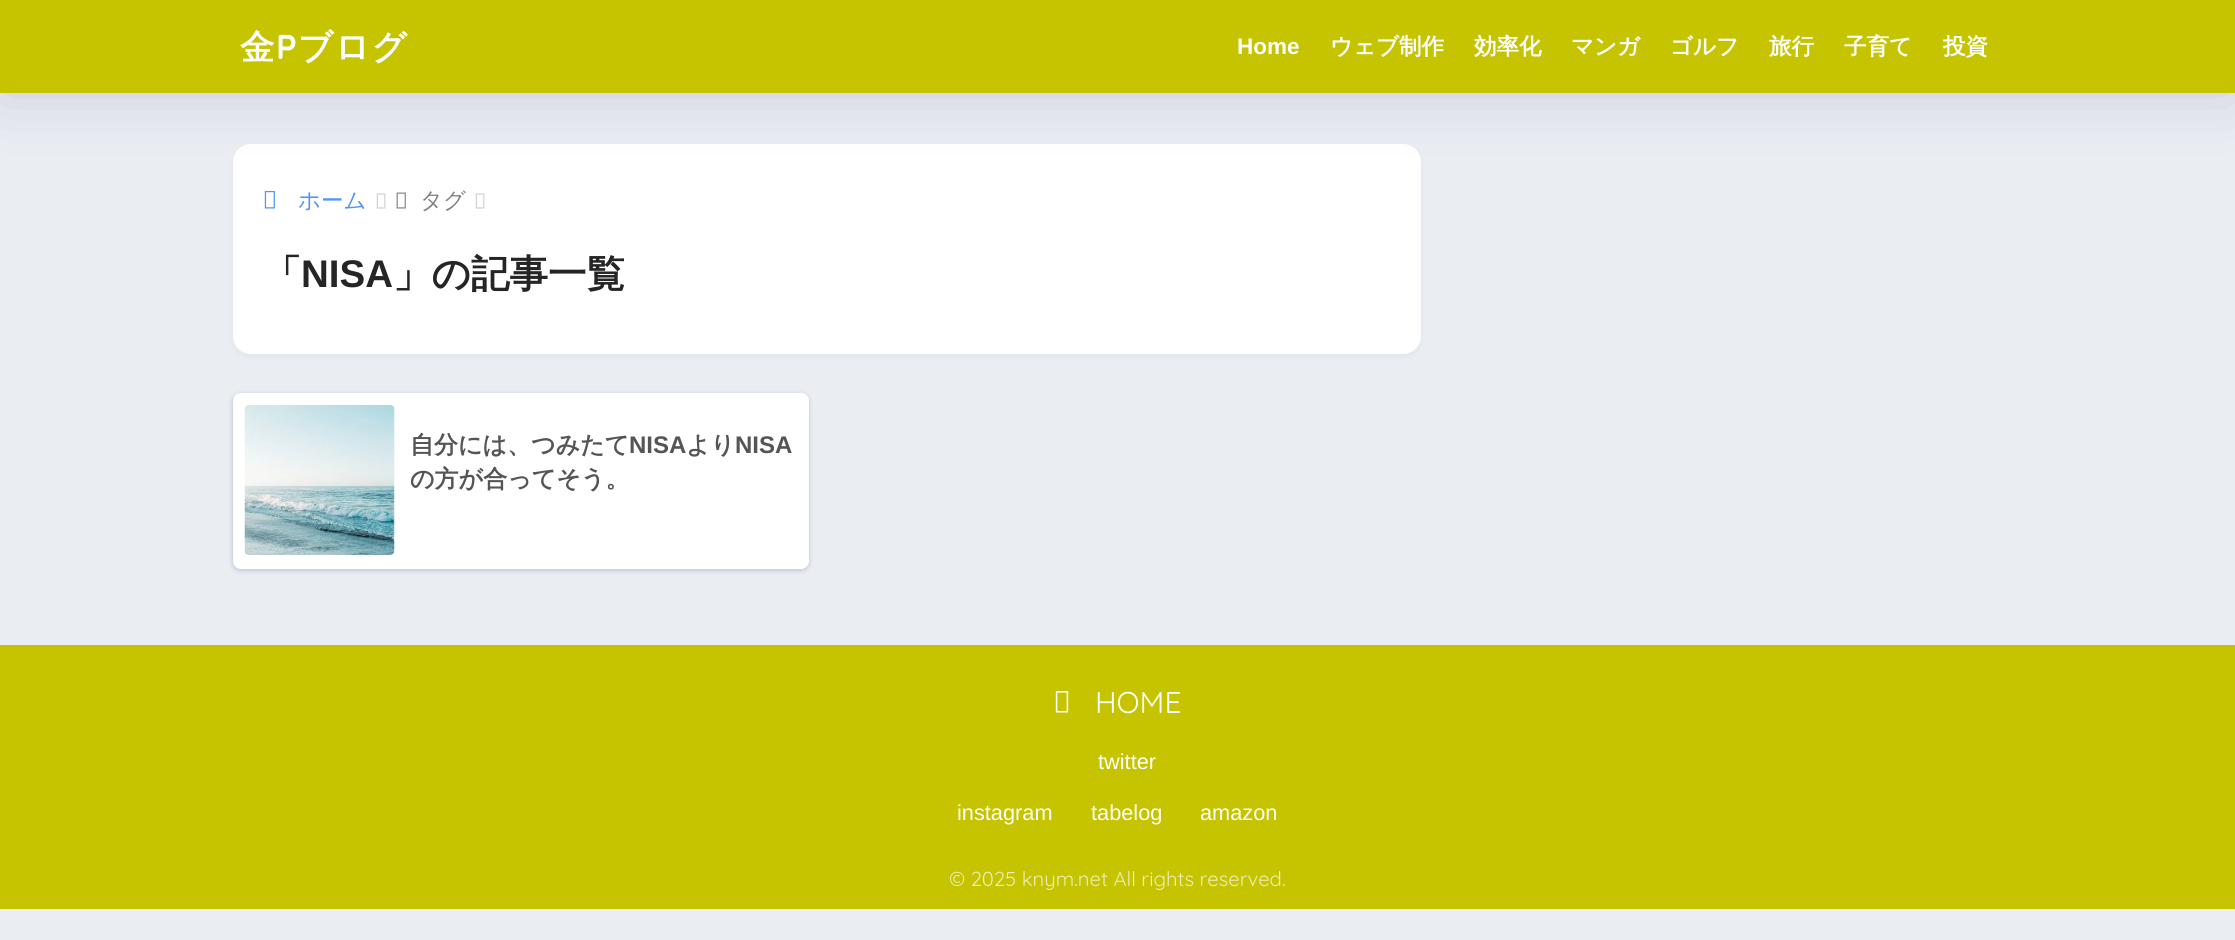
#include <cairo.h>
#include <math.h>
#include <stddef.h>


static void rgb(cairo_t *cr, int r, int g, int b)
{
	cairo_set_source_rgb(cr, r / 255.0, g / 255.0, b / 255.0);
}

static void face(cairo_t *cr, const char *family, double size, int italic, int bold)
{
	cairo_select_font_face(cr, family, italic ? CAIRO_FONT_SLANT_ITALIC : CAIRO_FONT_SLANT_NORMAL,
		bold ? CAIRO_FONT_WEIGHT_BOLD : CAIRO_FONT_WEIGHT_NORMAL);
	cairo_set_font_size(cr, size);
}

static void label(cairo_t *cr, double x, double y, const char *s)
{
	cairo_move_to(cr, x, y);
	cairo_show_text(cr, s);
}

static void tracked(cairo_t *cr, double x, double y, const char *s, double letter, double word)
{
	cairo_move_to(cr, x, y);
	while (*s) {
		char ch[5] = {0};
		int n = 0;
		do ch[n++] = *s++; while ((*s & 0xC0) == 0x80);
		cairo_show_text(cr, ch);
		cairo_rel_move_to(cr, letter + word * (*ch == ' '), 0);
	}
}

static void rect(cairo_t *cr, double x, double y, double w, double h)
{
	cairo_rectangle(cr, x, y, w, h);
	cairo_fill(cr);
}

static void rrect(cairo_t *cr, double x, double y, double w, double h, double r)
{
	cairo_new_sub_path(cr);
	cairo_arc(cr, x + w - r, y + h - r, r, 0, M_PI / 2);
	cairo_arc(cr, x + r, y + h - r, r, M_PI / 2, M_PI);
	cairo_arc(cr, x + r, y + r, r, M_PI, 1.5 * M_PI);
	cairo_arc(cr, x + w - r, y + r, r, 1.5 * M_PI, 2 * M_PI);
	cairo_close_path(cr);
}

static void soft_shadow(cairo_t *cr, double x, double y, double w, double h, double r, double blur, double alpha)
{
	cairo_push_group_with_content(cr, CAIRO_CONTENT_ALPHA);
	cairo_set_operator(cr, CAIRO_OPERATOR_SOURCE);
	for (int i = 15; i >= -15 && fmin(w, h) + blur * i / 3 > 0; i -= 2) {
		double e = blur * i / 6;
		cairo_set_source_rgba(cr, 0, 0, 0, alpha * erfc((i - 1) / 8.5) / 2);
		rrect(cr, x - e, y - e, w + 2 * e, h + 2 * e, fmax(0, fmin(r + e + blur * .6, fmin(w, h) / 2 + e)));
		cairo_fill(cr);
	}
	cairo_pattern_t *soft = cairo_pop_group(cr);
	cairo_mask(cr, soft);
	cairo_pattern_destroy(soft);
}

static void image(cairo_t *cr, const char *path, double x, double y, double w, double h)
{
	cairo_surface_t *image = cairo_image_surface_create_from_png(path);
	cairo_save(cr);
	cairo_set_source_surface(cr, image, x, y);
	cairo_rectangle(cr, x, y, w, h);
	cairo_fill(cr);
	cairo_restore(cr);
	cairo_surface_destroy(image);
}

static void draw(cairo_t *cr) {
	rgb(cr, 234, 237, 242);
	cairo_paint(cr);
	rgb(cr, 67, 133, 187);
	soft_shadow(cr, 233, 147, 1188, 210, 18, 3, 0.07);
	rgb(cr, 255, 255, 255);
	rrect(cr, 233, 144, 1188, 210, 18);
	cairo_fill(cr);
	image(cr, "image0.png", 264, 190, 11, 19);
	image(cr, "image1.png", 376, 193, 10, 16);
	image(cr, "image2.png", 396, 192, 10, 17);
	image(cr, "image1.png", 475, 193, 10, 16);
	rgb(cr, 0, 12, 66);
	soft_shadow(cr, 0, 0, 2235, 93, 0, 34, 0.15);
	rgb(cr, 198, 195, 0);
	rect(cr, 0, 0, 2235, 93);
	face(cr, "WenQuanYi Zen Hei", 34.5, 0, 1);
	rgb(cr, 255, 255, 255);
	tracked(cr, 240, 59, "金", 1.5, 0);
	face(cr, "Quicksand", 34.5, 0, 1);
	tracked(cr, 276, 59, "P", 1.5, 0);
	face(cr, "WenQuanYi Zen Hei", 34.5, 0, 1);
	tracked(cr, 298, 59, "ブログ", 1.5, 0);
	face(cr, "Liberation Sans", 22.5, 0, 1);
	label(cr, 1237, 54, "Home");
	face(cr, "WenQuanYi Zen Hei", 22.5, 0, 1);
	label(cr, 1330, 54, "ウェブ制作");
	label(cr, 1474, 54, "効率化");
	label(cr, 1571, 54, "マンガ");
	label(cr, 1670, 54, "ゴルフ");
	label(cr, 1769, 54, "旅行");
	label(cr, 1844, 54, "子育て");
	label(cr, 1943, 54, "投資");
	face(cr, "WenQuanYi Zen Hei Medium", 22.5, 0, 0);
	rgb(cr, 79, 150, 246);
	label(cr, 298, 208, "ホーム");
	rgb(cr, 128, 128, 128);
	label(cr, 420, 208, "タグ");
	face(cr, "WenQuanYi Zen Hei", 38.5, 0, 1);
	rgb(cr, 37, 37, 37);
	label(cr, 263, 287, "「");
	face(cr, "Liberation Sans", 38.5, 0, 1);
	label(cr, 301, 287, "NISA");
	face(cr, "WenQuanYi Zen Hei", 38.5, 0, 1);
	label(cr, 393, 287, "」の記事一覧");
	rgb(cr, 24, 44, 84);
	soft_shadow(cr, 231, 393, 579, 179, 9, 2, 0.1);
	soft_shadow(cr, 233, 395, 576, 175, 8, 1.5, 0.1);
	rgb(cr, 255, 255, 255);
	rrect(cr, 233, 393, 576, 176, 8);
	cairo_fill(cr);
	image(cr, "image3.png", 244, 405, 151, 150);
	face(cr, "WenQuanYi Zen Hei", 24, 0, 1);
	rgb(cr, 85, 85, 85);
	label(cr, 410, 453, "自分には、つみたて");
	face(cr, "Liberation Sans", 24, 0, 1);
	label(cr, 629, 453, "NISA");
	face(cr, "WenQuanYi Zen Hei", 24, 0, 1);
	label(cr, 686, 453, "より");
	face(cr, "Liberation Sans", 24, 0, 1);
	label(cr, 735, 453, "NISA");
	face(cr, "WenQuanYi Zen Hei", 24, 0, 1);
	label(cr, 410, 487, "の方が合ってそう。");
	rgb(cr, 198, 195, 0);
	rect(cr, 0, 645, 2235, 264);
	image(cr, "image4.png", 1055, 691, 14, 22);
	face(cr, "Quicksand", 30, 0, 0);
	rgb(cr, 255, 255, 255);
	label(cr, 1095, 713, "HOME");
	face(cr, "Liberation Sans", 21.75, 0, 0);
	label(cr, 957, 820, "instagram");
	label(cr, 1098, 769, "twitter");
	label(cr, 1091, 820, "tabelog");
	label(cr, 1200, 820, "amazon");
	face(cr, "Quicksand", 20.25, 0, 0);
	rgb(cr, 238, 237, 179);
	label(cr, 949, 886, "© 2025 knym.net All rights reserved.");
}

int main(void) {
	cairo_surface_t *surface = cairo_image_surface_create(CAIRO_FORMAT_RGB24, 2235, 940);
	cairo_t *cr = cairo_create(surface);
	cairo_font_options_t *options = cairo_font_options_create();
	cairo_font_options_set_hint_metrics(options, CAIRO_HINT_METRICS_OFF);
	cairo_font_options_set_hint_style(options, CAIRO_HINT_STYLE_NONE);
	cairo_set_font_options(cr, options);
	cairo_set_miter_limit(cr, 4);
	draw(cr);
	cairo_surface_write_to_png(surface, "render.png");
	cairo_font_options_destroy(options);
	cairo_destroy(cr);
	cairo_surface_destroy(surface);
	return 0;
}
